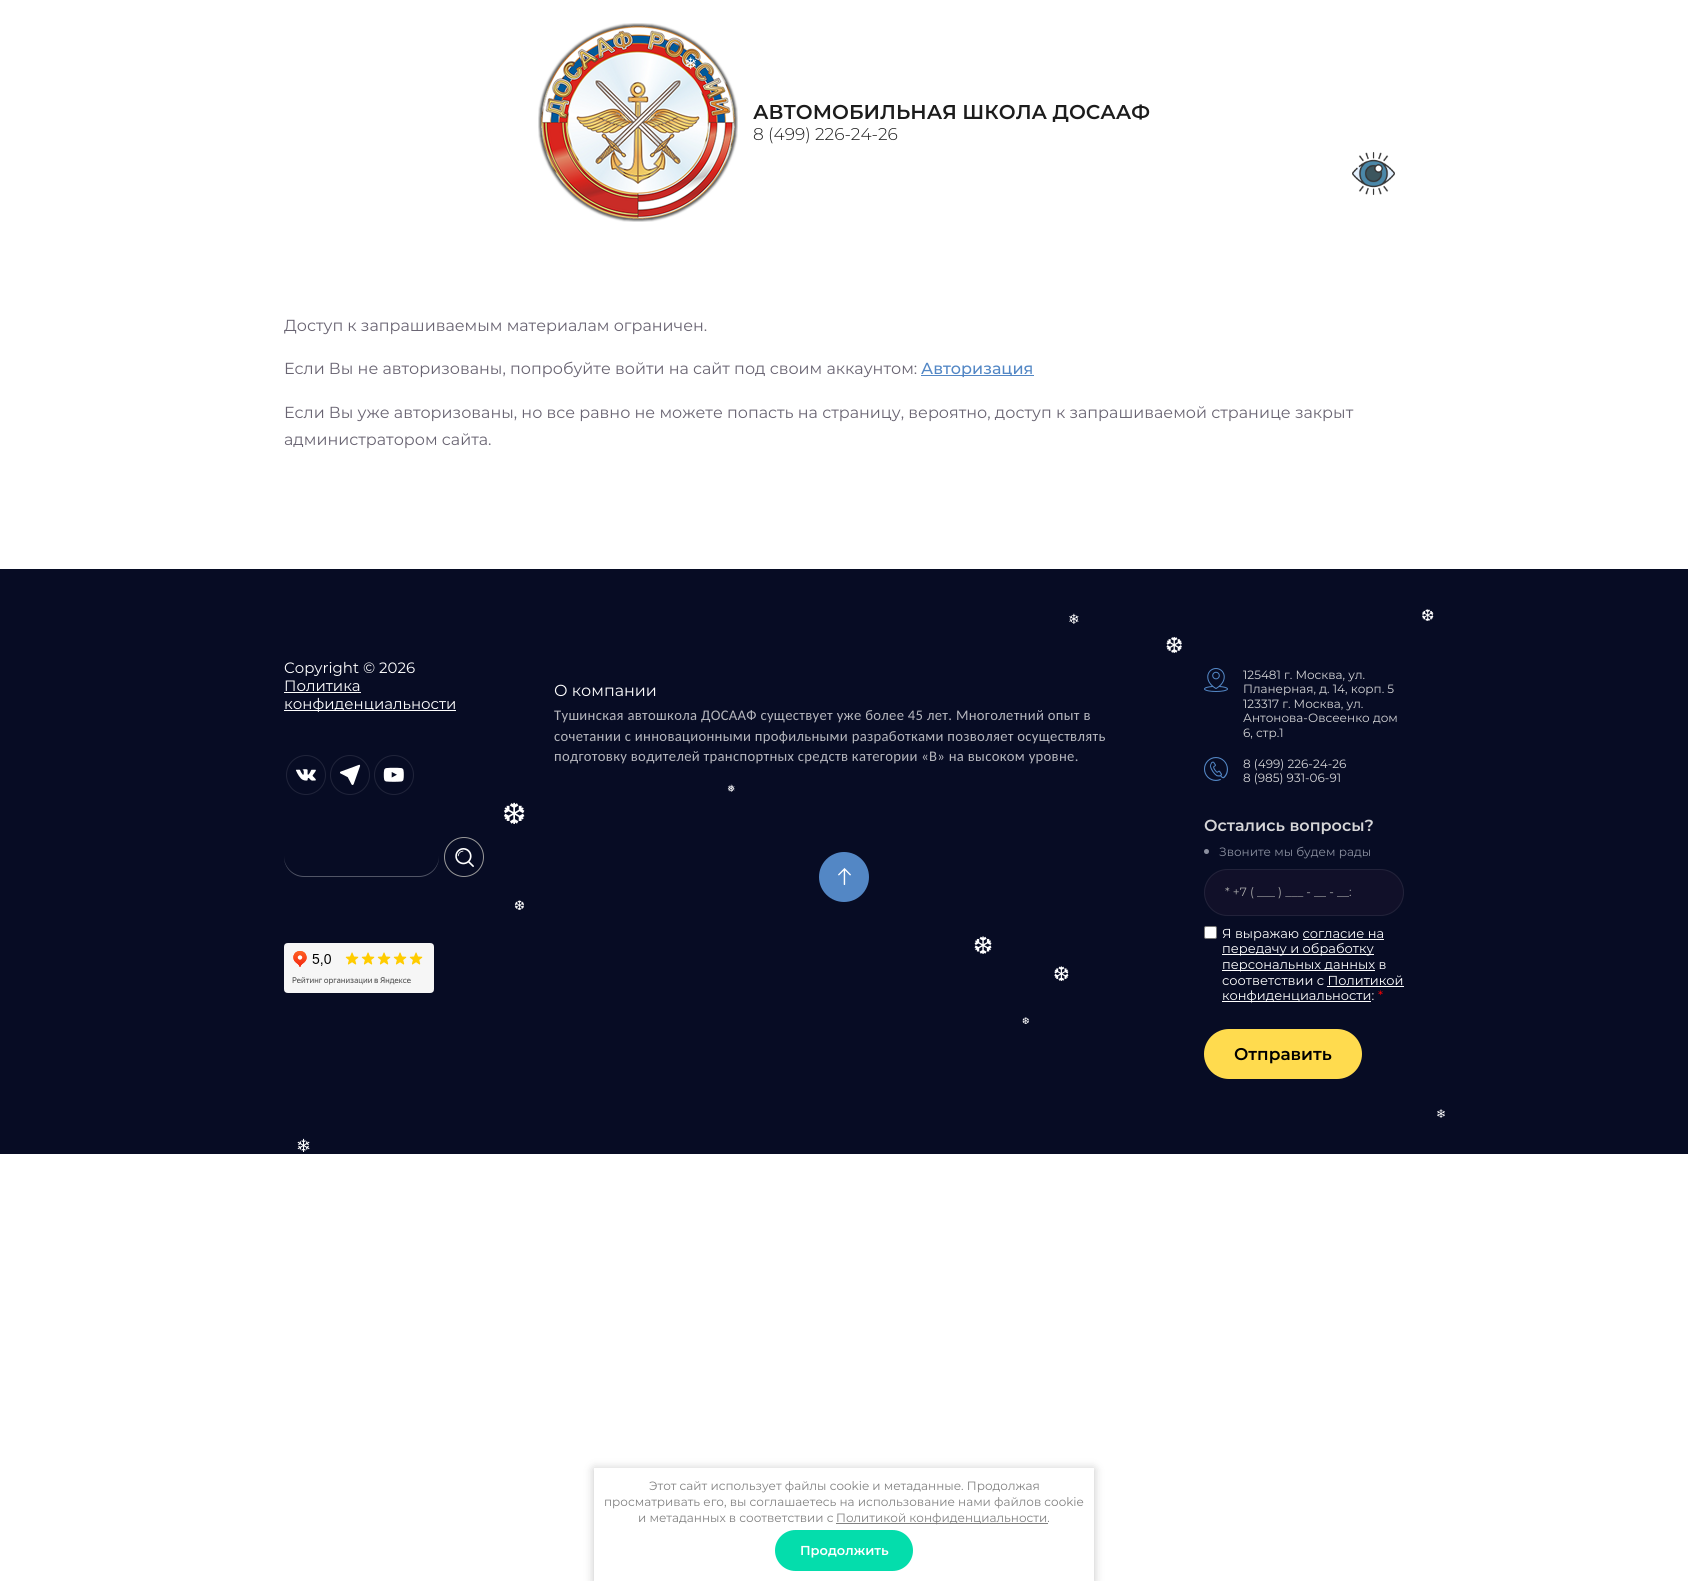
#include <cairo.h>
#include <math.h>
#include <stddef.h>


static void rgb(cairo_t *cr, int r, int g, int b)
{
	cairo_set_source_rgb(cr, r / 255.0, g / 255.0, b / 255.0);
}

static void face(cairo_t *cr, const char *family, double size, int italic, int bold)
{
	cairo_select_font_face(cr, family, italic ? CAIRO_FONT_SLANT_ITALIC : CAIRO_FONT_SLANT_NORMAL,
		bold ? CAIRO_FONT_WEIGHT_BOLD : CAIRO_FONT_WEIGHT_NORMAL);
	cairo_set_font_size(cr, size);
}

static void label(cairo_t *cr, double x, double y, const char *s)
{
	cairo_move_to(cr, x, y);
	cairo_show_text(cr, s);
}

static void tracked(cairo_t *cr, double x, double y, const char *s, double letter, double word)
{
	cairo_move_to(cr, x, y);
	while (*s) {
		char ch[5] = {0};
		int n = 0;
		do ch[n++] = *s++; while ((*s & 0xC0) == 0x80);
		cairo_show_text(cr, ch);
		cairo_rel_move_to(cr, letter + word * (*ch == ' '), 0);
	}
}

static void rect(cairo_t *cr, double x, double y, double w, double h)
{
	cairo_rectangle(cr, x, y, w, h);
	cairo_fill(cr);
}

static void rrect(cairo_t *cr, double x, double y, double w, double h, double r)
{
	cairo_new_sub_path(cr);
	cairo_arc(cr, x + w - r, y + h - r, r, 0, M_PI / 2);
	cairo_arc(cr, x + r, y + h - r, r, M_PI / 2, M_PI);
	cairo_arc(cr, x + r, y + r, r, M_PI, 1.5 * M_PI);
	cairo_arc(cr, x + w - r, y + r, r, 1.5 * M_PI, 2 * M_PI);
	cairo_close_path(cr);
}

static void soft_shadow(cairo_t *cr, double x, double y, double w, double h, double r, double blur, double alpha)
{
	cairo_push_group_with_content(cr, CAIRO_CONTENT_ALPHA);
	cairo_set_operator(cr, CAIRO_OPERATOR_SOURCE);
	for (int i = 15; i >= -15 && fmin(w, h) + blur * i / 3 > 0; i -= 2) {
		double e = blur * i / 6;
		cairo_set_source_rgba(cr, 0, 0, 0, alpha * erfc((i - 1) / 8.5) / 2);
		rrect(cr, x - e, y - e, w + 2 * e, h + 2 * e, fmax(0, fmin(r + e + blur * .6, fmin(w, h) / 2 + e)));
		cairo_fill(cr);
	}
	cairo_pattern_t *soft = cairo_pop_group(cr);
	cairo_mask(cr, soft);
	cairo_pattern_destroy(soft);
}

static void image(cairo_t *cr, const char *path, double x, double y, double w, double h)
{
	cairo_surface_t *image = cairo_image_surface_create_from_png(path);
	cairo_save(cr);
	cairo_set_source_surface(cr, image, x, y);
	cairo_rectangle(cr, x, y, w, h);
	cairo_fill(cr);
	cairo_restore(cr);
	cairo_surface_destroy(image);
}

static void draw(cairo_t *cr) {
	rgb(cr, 255, 255, 255);
	cairo_paint(cr);
	image(cr, "image0.png", 538, 23, 200, 199);
	face(cr, "DejaVu Sans", 16, 0, 0);
	rgb(cr, 255, 255, 255);
	label(cr, 684, 69, "❄");
	face(cr, "Montserrat SemiBold", 20, 0, 0);
	rgb(cr, 28, 28, 28);
	label(cr, 753, 119, "АВТОМОБИЛЬНАЯ ШКОЛА ДОСААФ");
	face(cr, "Montserrat Light", 17, 0, 0);
	label(cr, 753, 140, "8 (499) 226-24-26");
	image(cr, "image1.png", 1352, 152, 43, 43);
	face(cr, "Montserrat", 16, 0, 0);
	rgb(cr, 105, 100, 114);
	label(cr, 284, 331, "Доступ к запрашиваемым материалам ограничен.");
	label(cr, 284, 374, "Если Вы не авторизованы, попробуйте войти на сайт под своим аккаунтом:");
	rgb(cr, 83, 135, 197);
	rect(cr, 921, 375, 113, 1);
	face(cr, "Montserrat Medium", 16, 0, 0);
	label(cr, 921, 374, "Авторизация");
	face(cr, "Montserrat", 16, 0, 0);
	rgb(cr, 105, 100, 114);
	label(cr, 284, 418, "Если Вы уже авторизованы, но все равно не можете попасть на страницу, вероятно, доступ к запрашиваемой странице закрыт");
	label(cr, 284, 445, "администратором сайта.");
	rgb(cr, 7, 12, 36);
	rect(cr, 0, 569, 1688, 585);
	face(cr, "Montserrat", 15, 0, 0);
	rgb(cr, 255, 255, 255);
	label(cr, 284, 673, "Copyright © 2026");
	label(cr, 284, 691, "Политика");
	rect(cr, 284, 692, 77, 1);
	rect(cr, 284, 710, 172, 1);
	label(cr, 284, 709, "конфиденциальности");
	cairo_new_path(cr);
	cairo_arc(cr, 306, 775, 19.5, 0, 2 * M_PI);
	rgb(cr, 32, 36, 58);
	cairo_set_line_width(cr, 1);
	cairo_stroke(cr);
	image(cr, "image2.png", 295, 769, 21, 12);
	cairo_arc(cr, 350, 775, 19.5, 0, 2 * M_PI);
	cairo_stroke(cr);
	image(cr, "image3.png", 340, 764, 21, 21);
	cairo_arc(cr, 394, 775, 19.5, 0, 2 * M_PI);
	cairo_stroke(cr);
	image(cr, "image4.png", 383, 767, 21, 15);
	rgb(cr, 81, 85, 102);
	cairo_new_path(cr);
	cairo_move_to(cr, 284, 856);
	cairo_line_to(cr, 284, 857);
	cairo_curve_to(cr, 284, 868, 293, 877, 304, 877);
	cairo_line_to(cr, 419, 877);
	cairo_curve_to(cr, 430, 877, 439, 868, 439, 857);
	cairo_line_to(cr, 439, 856);
	cairo_curve_to(cr, 439, 867, 430, 876, 419, 876);
	cairo_line_to(cr, 304, 876);
	cairo_curve_to(cr, 293, 876, 284, 867, 284, 856);
	cairo_close_path(cr);
	cairo_fill(cr);
	image(cr, "image5.png", 455, 848, 19, 19);
	cairo_arc(cr, 464, 857, 19.5, 0, 2 * M_PI);
	rgb(cr, 153, 153, 153);
	cairo_stroke(cr);
	image(cr, "image6.png", 284, 943, 150, 50);
	face(cr, "Montserrat", 16, 0, 0);
	rgb(cr, 255, 255, 255);
	label(cr, 554, 696, "О компании");
	face(cr, "Carlito", 14.65, 0, 0);
	rgb(cr, 181, 182, 189);
	tracked(cr, 554, 720, "Тушинская автошкола ДОСААФ существует уже более 45 лет. Многолетний опыт в", 0.3, 0);
	tracked(cr, 554, 741, "сочетании с инновационными профильными разработками позволяет осуществлять", 0.3, 0);
	tracked(cr, 554, 761, "подготовку водителей транспортных средств категории «В» на высоком уровне.", 0.3, 0);
	rgb(cr, 83, 135, 197);
	cairo_new_path(cr);
	cairo_arc(cr, 844, 877, 25, 0, 2 * M_PI);
	cairo_fill(cr);
	image(cr, "image7.png", 838, 868, 13, 17);
	image(cr, "image8.png", 1204, 668, 24, 24);
	face(cr, "Montserrat", 12, 0, 0);
	rgb(cr, 213, 213, 215);
	label(cr, 1243, 679, "125481 г. Москва, ул.");
	label(cr, 1243, 693, "Планерная, д. 14, корп. 5");
	label(cr, 1243, 708, "123317 г. Москва, ул.");
	label(cr, 1243, 722, "Антонова-Овсеенко дом");
	label(cr, 1243, 737, "6, стр.1");
	image(cr, "image9.png", 1204, 757, 24, 24);
	label(cr, 1243, 768, "8 (499) 226-24-26");
	label(cr, 1243, 782, "8 (985) 931-06-91");
	face(cr, "Montserrat SemiBold", 16, 0, 0);
	label(cr, 1204, 831, "Остались вопросы?");
	rgb(cr, 139, 144, 160);
	cairo_new_path(cr);
	cairo_arc(cr, 1206.5, 851.5, 2.5, 0, 2 * M_PI);
	cairo_fill(cr);
	face(cr, "Montserrat", 12, 0, 0);
	label(cr, 1219, 856, "Звоните мы будем рады");
	rgb(cr, 17, 16, 41);
	rrect(cr, 1204, 869, 200, 47, 23.5);
	cairo_fill(cr);
	rrect(cr, 1204.5, 869.5, 199, 46, 23);
	cairo_set_source_rgba(cr, 0.765, 0.788, 0.835, 0.1);
	cairo_stroke(cr);
	rgb(cr, 171, 171, 171);
	label(cr, 1225, 896, "* +7 ( ___ ) ___ - __ - __:");
	rgb(cr, 255, 255, 255);
	rrect(cr, 1204.5, 926.5, 12, 12, 1.5);
	cairo_fill_preserve(cr);
	rgb(cr, 118, 118, 118);
	cairo_stroke(cr);
	face(cr, "Montserrat", 13, 0, 0);
	rgb(cr, 255, 255, 255);
	label(cr, 1222, 938, "Я выражаю согласие на");
	rect(cr, 1222, 954, 152, 1);
	label(cr, 1222, 953, "передачу и обработку");
	rect(cr, 1303, 939, 81, 1);
	rect(cr, 1222, 970, 153, 1);
	label(cr, 1222, 969, "персональных данных в");
	label(cr, 1222, 985, "соответствии с Политикой");
	rect(cr, 1222, 1001, 149, 1);
	label(cr, 1222, 1000, "конфиденциальности:");
	rect(cr, 1327, 986, 77, 1);
	rgb(cr, 255, 0, 0);
	label(cr, 1378, 1000, "*");
	rgb(cr, 255, 219, 78);
	rrect(cr, 1204, 1029, 158, 50, 25);
	cairo_fill(cr);
	face(cr, "Montserrat SemiBold", 17, 0, 0);
	rgb(cr, 0, 0, 0);
	label(cr, 1234, 1060, "Отправить");
	face(cr, "DejaVu Sans", 16, 0, 0);
	rgb(cr, 255, 255, 255);
	label(cr, 1421, 621, "❆");
	face(cr, "DejaVu Sans", 14, 0, 0);
	label(cr, 1068, 624, "❄");
	face(cr, "DejaVu Sans", 22, 0, 0);
	label(cr, 1165, 653, "❆");
	face(cr, "DejaVu Sans", 10, 0, 0);
	label(cr, 727, 792, "❅");
	face(cr, "DejaVu Sans", 29, 0, 0);
	label(cr, 502, 824, "❆");
	face(cr, "DejaVu Sans", 13, 0, 0);
	label(cr, 514, 910, "❆");
	face(cr, "DejaVu Sans", 24, 0, 0);
	label(cr, 973, 954, "❆");
	face(cr, "DejaVu Sans", 20, 0, 0);
	label(cr, 1053, 981, "❆");
	face(cr, "DejaVu Sans", 9, 0, 0);
	label(cr, 1022, 1024, "❆");
	face(cr, "DejaVu Sans", 12, 0, 0);
	label(cr, 1436, 1118, "❄");
	face(cr, "DejaVu Sans", 18, 0, 0);
	label(cr, 296, 1152, "❄");
	cairo_save(cr);
	cairo_set_fill_rule(cr, CAIRO_FILL_RULE_EVEN_ODD);
	cairo_new_path(cr);
	cairo_move_to(cr, 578, 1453);
	cairo_line_to(cr, 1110, 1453);
	cairo_line_to(cr, 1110, 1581);
	cairo_line_to(cr, 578, 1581);
	cairo_close_path(cr);
	cairo_move_to(cr, 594, 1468);
	cairo_line_to(cr, 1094, 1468);
	cairo_line_to(cr, 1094, 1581);
	cairo_line_to(cr, 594, 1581);
	cairo_close_path(cr);
	cairo_clip(cr);
	rgb(cr, 0, 0, 0);
	soft_shadow(cr, 594, 1469, 500, 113, 0, 5, 0.23);
	cairo_restore(cr);
	face(cr, "Montserrat", 12, 0, 0);
	rgb(cr, 128, 128, 128);
	label(cr, 649, 1490, "Этот сайт использует файлы cookie и метаданные. Продолжая");
	label(cr, 604, 1506, "просматривать его, вы соглашаетесь на использование нами файлов cookie");
	label(cr, 638, 1522, "и метаданных в соответствии с");
	rect(cr, 836, 1523, 212, 1);
	label(cr, 836, 1522, "Политикой конфиденциальности.");
	rgb(cr, 4, 221, 172);
	rrect(cr, 775, 1530, 138, 41, 20.5);
	cairo_fill(cr);
	face(cr, "Montserrat SemiBold", 13, 0, 0);
	rgb(cr, 255, 255, 255);
	label(cr, 800, 1555, "Продолжить");
}

int main(void) {
	cairo_surface_t *surface = cairo_image_surface_create(CAIRO_FORMAT_RGB24, 1688, 1581);
	cairo_t *cr = cairo_create(surface);
	cairo_font_options_t *options = cairo_font_options_create();
	cairo_font_options_set_hint_metrics(options, CAIRO_HINT_METRICS_OFF);
	cairo_font_options_set_hint_style(options, CAIRO_HINT_STYLE_NONE);
	cairo_set_font_options(cr, options);
	cairo_set_miter_limit(cr, 4);
	draw(cr);
	cairo_surface_write_to_png(surface, "render.png");
	cairo_font_options_destroy(options);
	cairo_destroy(cr);
	cairo_surface_destroy(surface);
	return 0;
}
